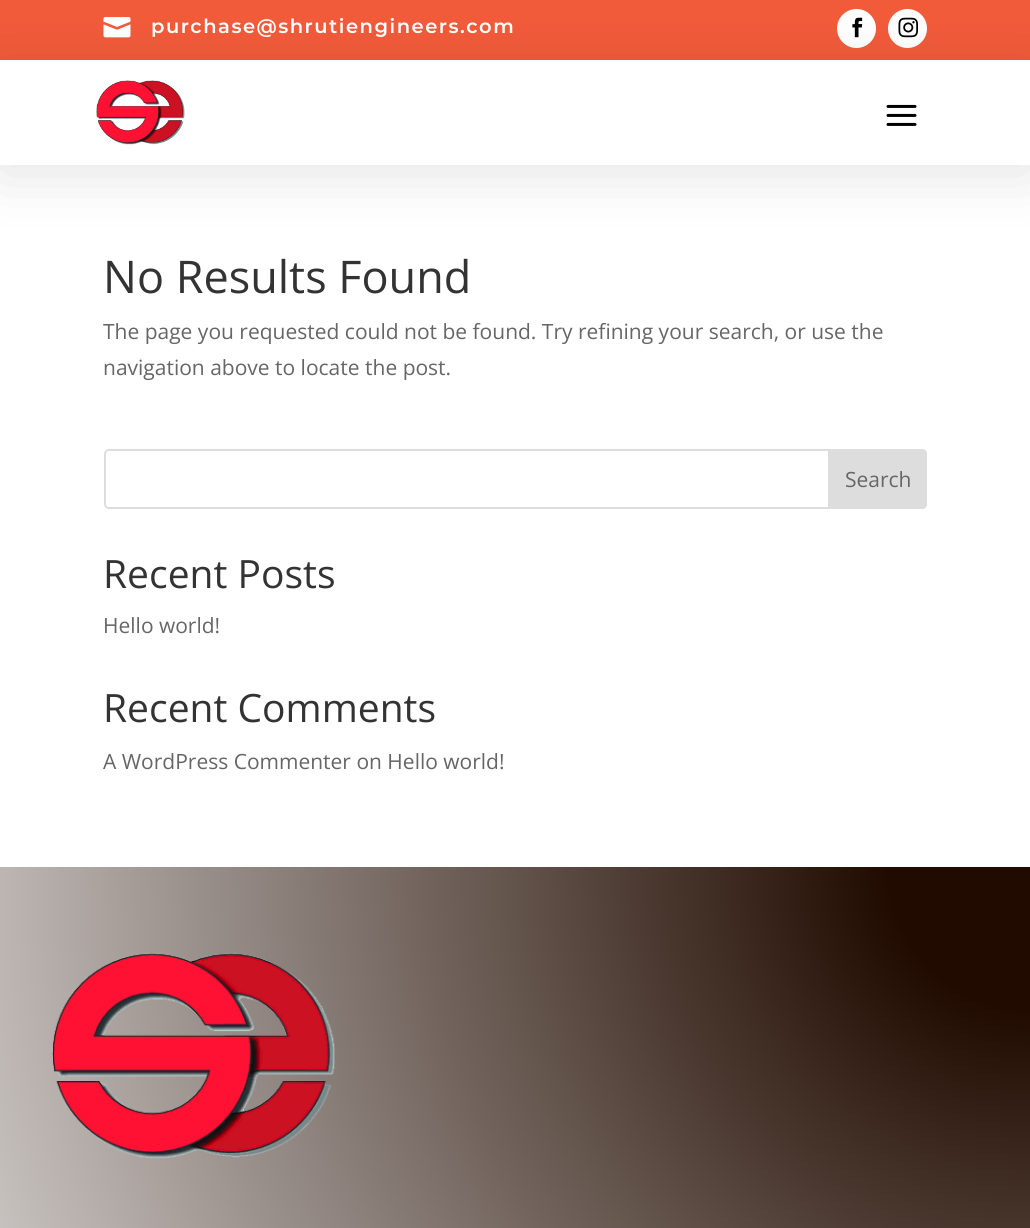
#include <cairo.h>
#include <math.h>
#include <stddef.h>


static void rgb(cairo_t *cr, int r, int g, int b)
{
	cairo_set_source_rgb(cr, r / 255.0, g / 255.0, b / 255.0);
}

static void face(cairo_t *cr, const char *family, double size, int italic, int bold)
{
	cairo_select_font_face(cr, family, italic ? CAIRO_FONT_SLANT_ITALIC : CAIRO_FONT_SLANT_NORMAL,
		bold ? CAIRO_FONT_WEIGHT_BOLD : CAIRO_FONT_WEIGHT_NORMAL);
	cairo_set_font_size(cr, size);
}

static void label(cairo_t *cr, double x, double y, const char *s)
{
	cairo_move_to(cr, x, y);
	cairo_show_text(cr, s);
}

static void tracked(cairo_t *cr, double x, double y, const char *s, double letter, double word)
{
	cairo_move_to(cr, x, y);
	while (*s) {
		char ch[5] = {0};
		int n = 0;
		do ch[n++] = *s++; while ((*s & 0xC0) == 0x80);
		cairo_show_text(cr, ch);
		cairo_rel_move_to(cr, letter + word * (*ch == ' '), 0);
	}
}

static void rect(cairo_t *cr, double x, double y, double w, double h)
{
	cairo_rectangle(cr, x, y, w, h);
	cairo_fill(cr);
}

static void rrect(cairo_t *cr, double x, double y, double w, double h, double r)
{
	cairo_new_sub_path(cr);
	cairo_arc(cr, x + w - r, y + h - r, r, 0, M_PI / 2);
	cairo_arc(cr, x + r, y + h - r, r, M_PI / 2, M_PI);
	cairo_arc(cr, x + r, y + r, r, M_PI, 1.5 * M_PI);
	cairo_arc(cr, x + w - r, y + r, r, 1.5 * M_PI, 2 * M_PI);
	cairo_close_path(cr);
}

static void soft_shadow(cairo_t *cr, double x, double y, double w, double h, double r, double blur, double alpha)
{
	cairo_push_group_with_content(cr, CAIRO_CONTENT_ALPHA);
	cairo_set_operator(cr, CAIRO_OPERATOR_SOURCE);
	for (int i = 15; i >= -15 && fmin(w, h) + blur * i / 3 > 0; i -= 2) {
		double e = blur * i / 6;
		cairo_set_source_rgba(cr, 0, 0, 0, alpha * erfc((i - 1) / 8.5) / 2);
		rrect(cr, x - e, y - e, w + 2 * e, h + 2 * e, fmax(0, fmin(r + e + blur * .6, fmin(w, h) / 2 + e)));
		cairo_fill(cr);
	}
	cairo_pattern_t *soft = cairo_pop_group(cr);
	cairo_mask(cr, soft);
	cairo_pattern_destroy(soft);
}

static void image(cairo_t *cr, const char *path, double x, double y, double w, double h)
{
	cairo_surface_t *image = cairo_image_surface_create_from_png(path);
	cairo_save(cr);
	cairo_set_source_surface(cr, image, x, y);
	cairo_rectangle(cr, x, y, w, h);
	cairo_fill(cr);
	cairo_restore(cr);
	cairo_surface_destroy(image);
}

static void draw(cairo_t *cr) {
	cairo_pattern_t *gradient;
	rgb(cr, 255, 255, 255);
	cairo_paint(cr);
	rgb(cr, 242, 91, 58);
	rect(cr, 0, 0, 1030, 60);
	image(cr, "image2.png", 103, 17, 28, 21);
	rgb(cr, 255, 255, 255);
	cairo_arc(cr, 856.5, 28.5, 19.5, 0, 2 * M_PI);
	cairo_fill(cr);
	image(cr, "image3.png", 852, 17, 11, 21);
	cairo_arc(cr, 907.5, 28.5, 19.5, 0, 2 * M_PI);
	cairo_fill(cr);
	image(cr, "image4.png", 898, 17, 20, 21);
	cairo_save(cr);
	cairo_set_fill_rule(cr, CAIRO_FILL_RULE_EVEN_ODD);
	cairo_new_path(cr);
	cairo_move_to(cr, 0, 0);
	cairo_line_to(cr, 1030, 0);
	cairo_line_to(cr, 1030, 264);
	cairo_line_to(cr, 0, 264);
	cairo_close_path(cr);
	cairo_move_to(cr, 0, 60);
	cairo_line_to(cr, 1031, 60);
	cairo_line_to(cr, 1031, 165);
	cairo_line_to(cr, 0, 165);
	cairo_close_path(cr);
	cairo_clip(cr);
	rgb(cr, 0, 0, 0);
	soft_shadow(cr, 0, 68, 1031, 105, 0, 30, 0.11);
	cairo_restore(cr);
	image(cr, "image0.png", 96, 80, 89, 65);
	image(cr, "image1.png", 886, 104, 31, 22);
	face(cr, "Montserrat SemiBold", 19.5, 0, 0);
	tracked(cr, 151, 33, "purchase@shrutiengineers.com", 1.5, 0);
	face(cr, "Open Sans", 45, 0, 0);
	rgb(cr, 51, 51, 51);
	label(cr, 103, 293, "No Results Found");
	face(cr, "Open Sans", 21, 0, 0);
	rgb(cr, 102, 102, 102);
	label(cr, 103, 339, "The page you requested could not be found. Try refining your search, or use the");
	label(cr, 103, 375, "navigation above to locate the post.");
	rrect(cr, 105, 450, 821, 58, 4);
	rgb(cr, 221, 221, 221);
	cairo_stroke(cr);
	cairo_new_path(cr);
	cairo_move_to(cr, 829, 450);
	cairo_line_to(cr, 922, 450);
	cairo_curve_to(cr, 924, 450, 926, 452, 926, 454);
	cairo_line_to(cr, 926, 504);
	cairo_curve_to(cr, 926, 506, 924, 508, 922, 508);
	cairo_line_to(cr, 829, 508);
	cairo_close_path(cr);
	cairo_fill_preserve(cr);
	cairo_stroke(cr);
	rgb(cr, 102, 102, 102);
	label(cr, 845, 487, "Search");
	face(cr, "Open Sans", 39, 0, 0);
	rgb(cr, 51, 51, 51);
	label(cr, 103, 588, "Recent Posts");
	face(cr, "Open Sans", 21, 0, 0);
	rgb(cr, 102, 102, 102);
	label(cr, 103, 633, "Hello world!");
	face(cr, "Open Sans", 39, 0, 0);
	rgb(cr, 51, 51, 51);
	label(cr, 103, 722, "Recent Comments");
	face(cr, "Open Sans", 21, 0, 0);
	rgb(cr, 102, 102, 102);
	label(cr, 103, 769, "A WordPress Commenter on Hello world!");
	gradient = cairo_pattern_create_radial(1031, 867, 0, 1031, 867, 1415);
	cairo_pattern_add_color_stop_rgba(gradient, 0.1, 0.129, 0.043, 0, 1);
	cairo_pattern_add_color_stop_rgba(gradient, 1, 1, 1, 1, 1);
	cairo_set_source(cr, gradient);
	cairo_pattern_destroy(gradient);
	rect(cr, 0, 867, 1030, 361);
	image(cr, "image5.png", 52, 953, 283, 206);
}

int main(void) {
	cairo_surface_t *surface = cairo_image_surface_create(CAIRO_FORMAT_RGB24, 1030, 1228);
	cairo_t *cr = cairo_create(surface);
	cairo_font_options_t *options = cairo_font_options_create();
	cairo_font_options_set_hint_metrics(options, CAIRO_HINT_METRICS_OFF);
	cairo_font_options_set_hint_style(options, CAIRO_HINT_STYLE_NONE);
	cairo_set_font_options(cr, options);
	cairo_set_miter_limit(cr, 4);
	draw(cr);
	cairo_surface_write_to_png(surface, "render.png");
	cairo_font_options_destroy(options);
	cairo_destroy(cr);
	cairo_surface_destroy(surface);
	return 0;
}
